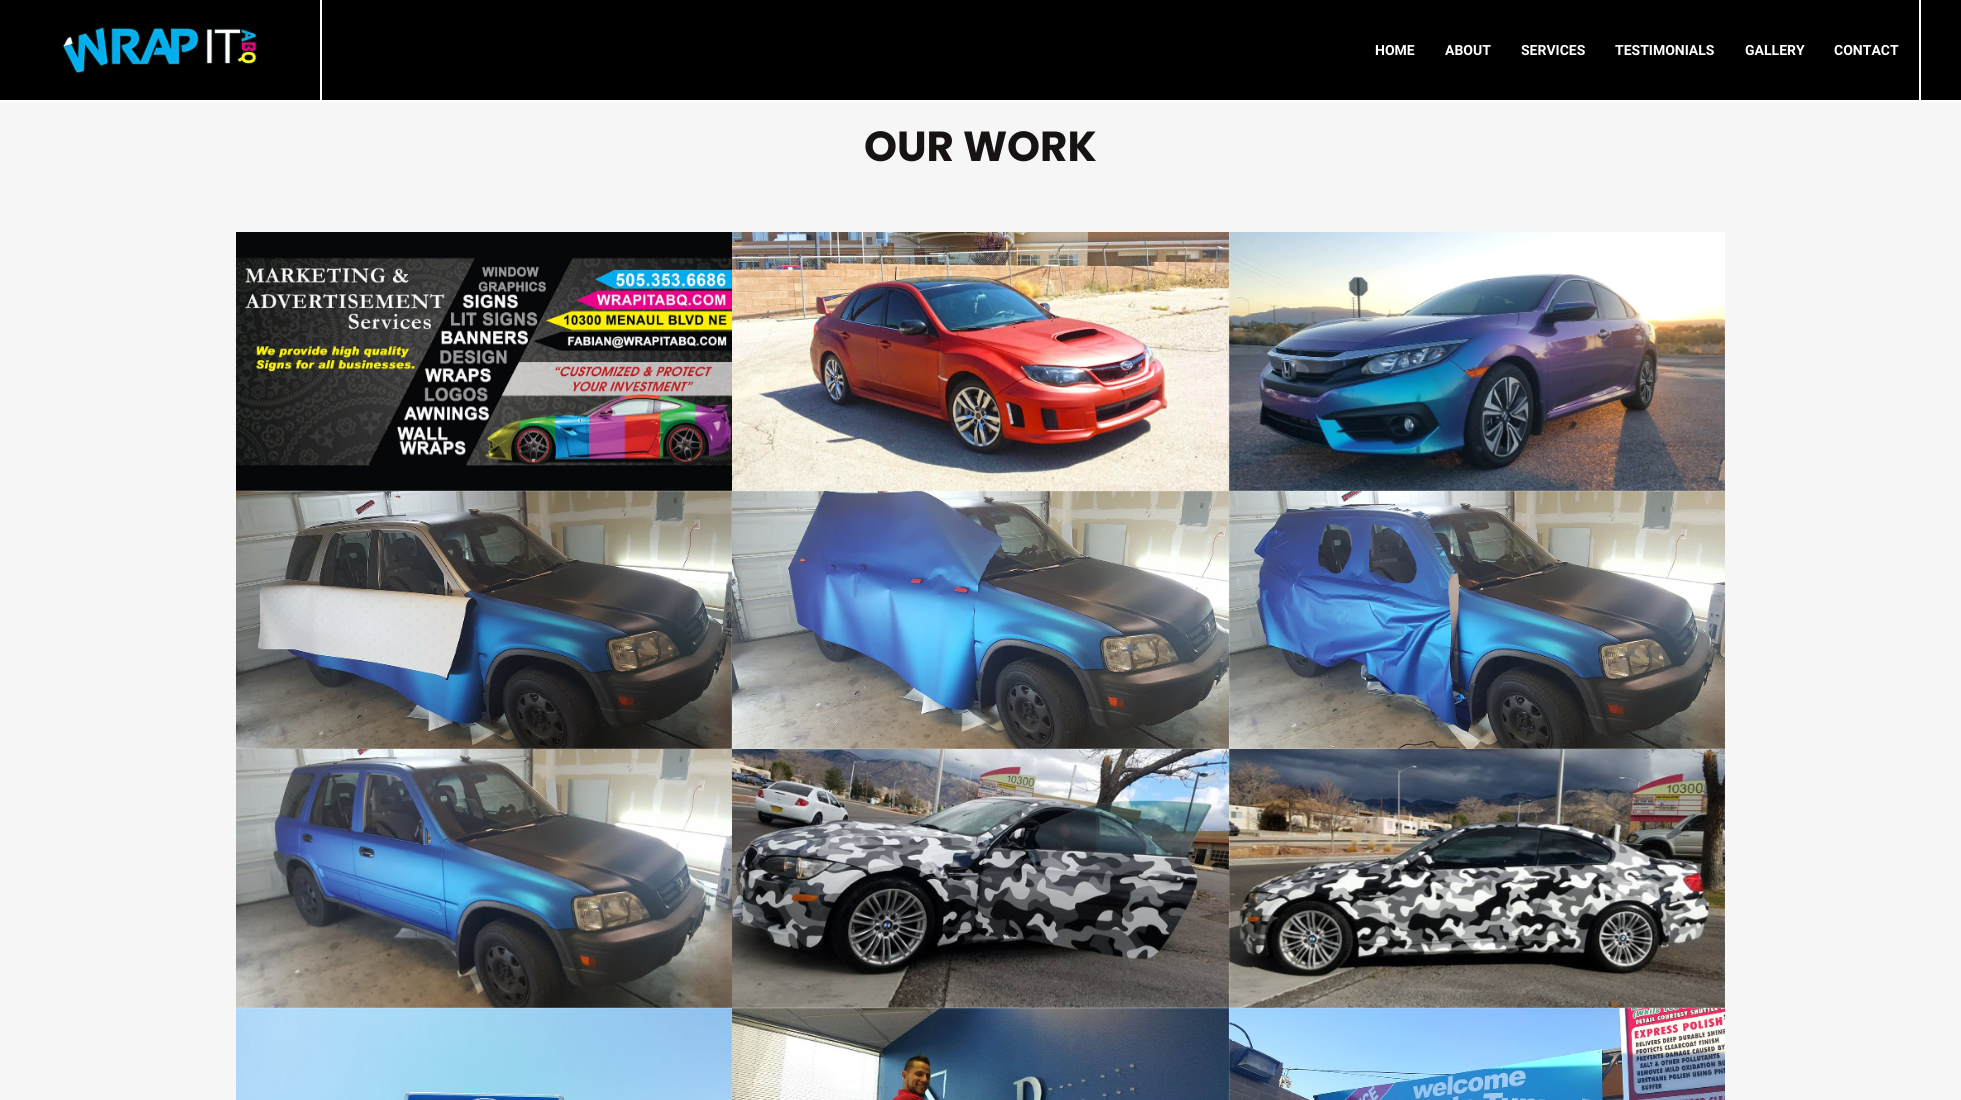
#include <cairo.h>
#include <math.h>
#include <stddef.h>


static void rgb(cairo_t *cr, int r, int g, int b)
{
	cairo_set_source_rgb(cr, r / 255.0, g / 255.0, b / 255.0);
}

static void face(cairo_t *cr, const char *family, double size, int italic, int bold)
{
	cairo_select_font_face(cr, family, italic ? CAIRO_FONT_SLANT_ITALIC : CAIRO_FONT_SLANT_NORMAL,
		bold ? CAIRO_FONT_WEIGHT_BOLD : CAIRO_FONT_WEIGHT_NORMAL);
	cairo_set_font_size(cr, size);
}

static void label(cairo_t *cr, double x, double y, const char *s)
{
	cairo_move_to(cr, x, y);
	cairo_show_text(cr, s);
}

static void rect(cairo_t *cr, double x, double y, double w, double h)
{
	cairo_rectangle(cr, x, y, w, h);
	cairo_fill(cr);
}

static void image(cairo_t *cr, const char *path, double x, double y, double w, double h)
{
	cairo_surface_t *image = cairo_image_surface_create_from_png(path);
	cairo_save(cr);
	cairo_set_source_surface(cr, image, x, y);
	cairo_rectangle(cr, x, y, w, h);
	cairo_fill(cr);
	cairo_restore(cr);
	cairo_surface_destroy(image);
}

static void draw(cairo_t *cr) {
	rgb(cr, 246, 246, 246);
	cairo_paint(cr);
	rgb(cr, 255, 255, 255);
	rect(cr, 0, 100, 1961, 2);
	rgb(cr, 0, 0, 0);
	rect(cr, 0, 0, 1961, 100);
	rgb(cr, 255, 255, 255);
	rect(cr, 1919, 0, 2, 100);
	rect(cr, 320, 0, 2, 100);
	image(cr, "image0.png", 62, 27, 195, 47);
	face(cr, "Roboto", 14, 0, 1);
	label(cr, 1375, 55, "HOME");
	label(cr, 1445, 55, "ABOUT");
	label(cr, 1521, 55, "SERVICES");
	label(cr, 1615, 55, "TESTIMONIALS");
	label(cr, 1745, 55, "GALLERY");
	label(cr, 1834, 55, "CONTACT");
	face(cr, "Poppins", 42, 0, 1);
	rgb(cr, 23, 19, 19);
	label(cr, 864, 161, "OUR WORK");
	image(cr, "image1.png", 236, 232, 496, 259);
	image(cr, "image2.png", 732, 232, 497, 259);
	image(cr, "image3.png", 1228, 232, 497, 259);
	image(cr, "image4.png", 236, 490, 497, 259);
	image(cr, "image5.png", 732, 490, 497, 259);
	image(cr, "image6.png", 1228, 490, 497, 260);
	image(cr, "image7.png", 236, 749, 496, 259);
	image(cr, "image8.png", 732, 749, 497, 259);
	image(cr, "image9.png", 1228, 749, 497, 259);
	image(cr, "image10.png", 236, 1007, 497, 93);
	image(cr, "image11.png", 732, 1007, 497, 93);
	image(cr, "image12.png", 1228, 1007, 497, 93);
}

int main(void) {
	cairo_surface_t *surface = cairo_image_surface_create(CAIRO_FORMAT_RGB24, 1961, 1100);
	cairo_t *cr = cairo_create(surface);
	cairo_font_options_t *options = cairo_font_options_create();
	cairo_font_options_set_hint_metrics(options, CAIRO_HINT_METRICS_OFF);
	cairo_font_options_set_hint_style(options, CAIRO_HINT_STYLE_NONE);
	cairo_set_font_options(cr, options);
	cairo_set_miter_limit(cr, 4);
	draw(cr);
	cairo_surface_write_to_png(surface, "render.png");
	cairo_font_options_destroy(options);
	cairo_destroy(cr);
	cairo_surface_destroy(surface);
	return 0;
}
